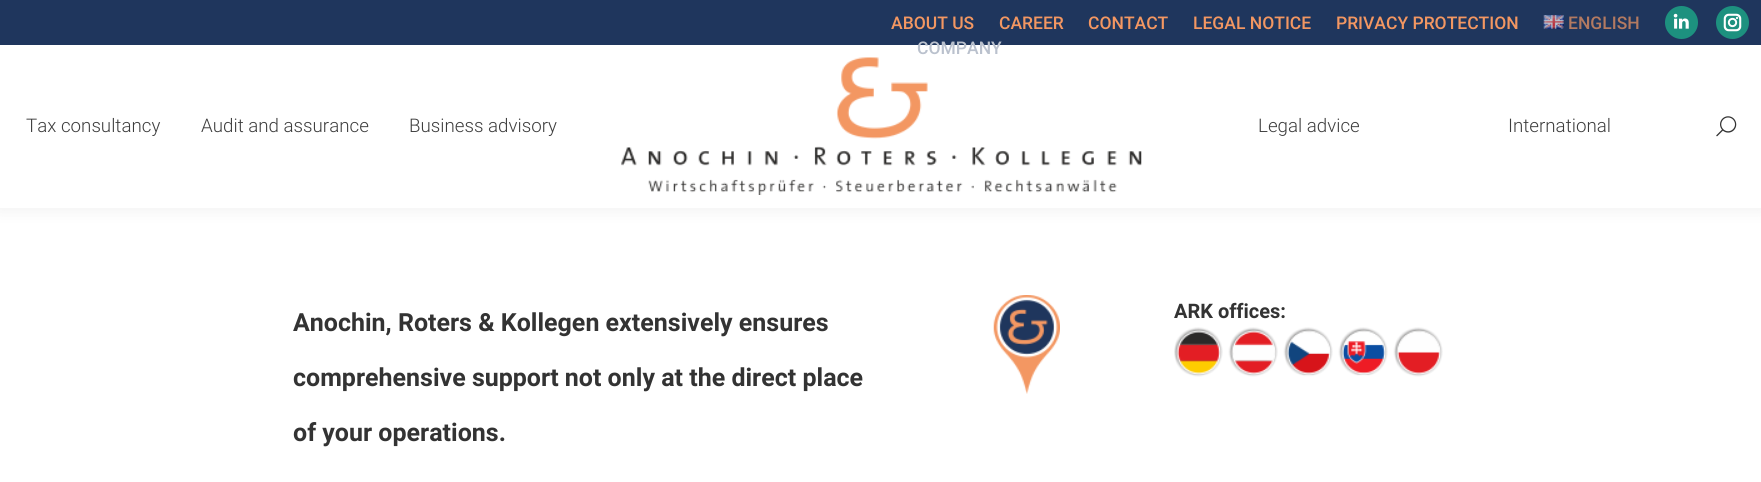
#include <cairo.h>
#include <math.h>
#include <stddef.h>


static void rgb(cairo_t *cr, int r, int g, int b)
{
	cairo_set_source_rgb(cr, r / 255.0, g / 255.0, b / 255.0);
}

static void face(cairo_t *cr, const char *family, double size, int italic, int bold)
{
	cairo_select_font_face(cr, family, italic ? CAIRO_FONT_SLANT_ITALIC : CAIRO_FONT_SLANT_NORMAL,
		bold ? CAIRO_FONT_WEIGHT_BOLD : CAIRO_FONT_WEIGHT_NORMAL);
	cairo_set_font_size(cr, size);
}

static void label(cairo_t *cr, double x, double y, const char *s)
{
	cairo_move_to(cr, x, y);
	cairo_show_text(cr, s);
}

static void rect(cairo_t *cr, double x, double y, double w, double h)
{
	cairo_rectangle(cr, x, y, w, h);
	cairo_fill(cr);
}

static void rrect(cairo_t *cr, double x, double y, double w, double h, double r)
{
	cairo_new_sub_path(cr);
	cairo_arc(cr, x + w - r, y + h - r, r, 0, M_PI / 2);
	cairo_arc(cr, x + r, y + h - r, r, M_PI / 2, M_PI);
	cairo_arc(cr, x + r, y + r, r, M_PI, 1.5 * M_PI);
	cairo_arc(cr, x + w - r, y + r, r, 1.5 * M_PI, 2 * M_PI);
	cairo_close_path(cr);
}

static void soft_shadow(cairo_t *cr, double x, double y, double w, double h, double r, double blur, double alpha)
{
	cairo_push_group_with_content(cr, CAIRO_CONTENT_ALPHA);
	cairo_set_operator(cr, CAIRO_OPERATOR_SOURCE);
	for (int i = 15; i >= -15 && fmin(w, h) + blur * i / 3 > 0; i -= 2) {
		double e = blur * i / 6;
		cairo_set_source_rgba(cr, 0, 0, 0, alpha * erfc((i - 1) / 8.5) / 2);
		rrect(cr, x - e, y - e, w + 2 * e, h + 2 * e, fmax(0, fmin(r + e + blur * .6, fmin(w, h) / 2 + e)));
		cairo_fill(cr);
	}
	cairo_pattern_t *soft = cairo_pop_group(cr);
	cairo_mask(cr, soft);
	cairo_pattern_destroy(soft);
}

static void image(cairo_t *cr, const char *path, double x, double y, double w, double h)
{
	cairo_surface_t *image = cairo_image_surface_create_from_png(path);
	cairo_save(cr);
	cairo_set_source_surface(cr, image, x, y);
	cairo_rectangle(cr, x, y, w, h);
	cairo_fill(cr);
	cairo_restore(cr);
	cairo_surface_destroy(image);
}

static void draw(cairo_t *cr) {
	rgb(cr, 255, 255, 255);
	cairo_paint(cr);
	rgb(cr, 0, 0, 0);
	soft_shadow(cr, -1, -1, 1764, 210, 0, 9.5, 0.07);
	rgb(cr, 255, 255, 255);
	rect(cr, 0, 45, 1761, 163);
	rgb(cr, 31, 54, 93);
	rect(cr, 0, 0, 1761, 45);
	face(cr, "Roboto Medium", 17.5, 0, 0);
	rgb(cr, 243, 151, 98);
	label(cr, 891, 29, "ABOUT US");
	label(cr, 999, 29, "CAREER");
	label(cr, 1088, 29, "CONTACT");
	label(cr, 1193, 29, "LEGAL NOTICE");
	label(cr, 1336, 29, "PRIVACY PROTECTION");
	image(cr, "image0.png", 1543, 15, 21, 14);
	rgb(cr, 179, 122, 97);
	label(cr, 1568, 29, "ENGLISH");
	rgb(cr, 186, 193, 205);
	label(cr, 917, 54, "COMPANY");
	rgb(cr, 29, 145, 127);
	cairo_new_path(cr);
	cairo_arc(cr, 1681.5, 22.5, 16.5, 0, 2 * M_PI);
	cairo_fill(cr);
	image(cr, "image1.png", 1673, 13, 16, 16);
	cairo_arc(cr, 1732.5, 22.5, 16.5, 0, 2 * M_PI);
	cairo_fill(cr);
	image(cr, "image2.png", 1723, 13, 19, 19);
	face(cr, "Roboto Light", 18.75, 0, 0);
	rgb(cr, 61, 61, 61);
	label(cr, 26, 132, "Tax consultancy");
	label(cr, 201, 132, "Audit and assurance");
	label(cr, 409, 132, "Business advisory");
	image(cr, "image3.png", 621, 57, 521, 138);
	label(cr, 1258, 132, "Legal advice");
	label(cr, 1508, 132, "International");
	image(cr, "image4.png", 1716, 116, 21, 21);
	face(cr, "Roboto", 25, 0, 1);
	rgb(cr, 51, 51, 51);
	label(cr, 293, 331, "Anochin, Roters & Kollegen extensively ensures");
	label(cr, 293, 386, "comprehensive support not only at the direct place");
	label(cr, 293, 441, "of your operations.");
	image(cr, "image5.png", 993, 295, 67, 99);
	face(cr, "Roboto", 20, 0, 1);
	label(cr, 1174, 318, "ARK offices:");
	image(cr, "image6.png", 1174, 327, 269, 50);
}

int main(void) {
	cairo_surface_t *surface = cairo_image_surface_create(CAIRO_FORMAT_RGB24, 1761, 482);
	cairo_t *cr = cairo_create(surface);
	cairo_font_options_t *options = cairo_font_options_create();
	cairo_font_options_set_hint_metrics(options, CAIRO_HINT_METRICS_OFF);
	cairo_font_options_set_hint_style(options, CAIRO_HINT_STYLE_NONE);
	cairo_set_font_options(cr, options);
	cairo_set_miter_limit(cr, 4);
	draw(cr);
	cairo_surface_write_to_png(surface, "render.png");
	cairo_font_options_destroy(options);
	cairo_destroy(cr);
	cairo_surface_destroy(surface);
	return 0;
}
